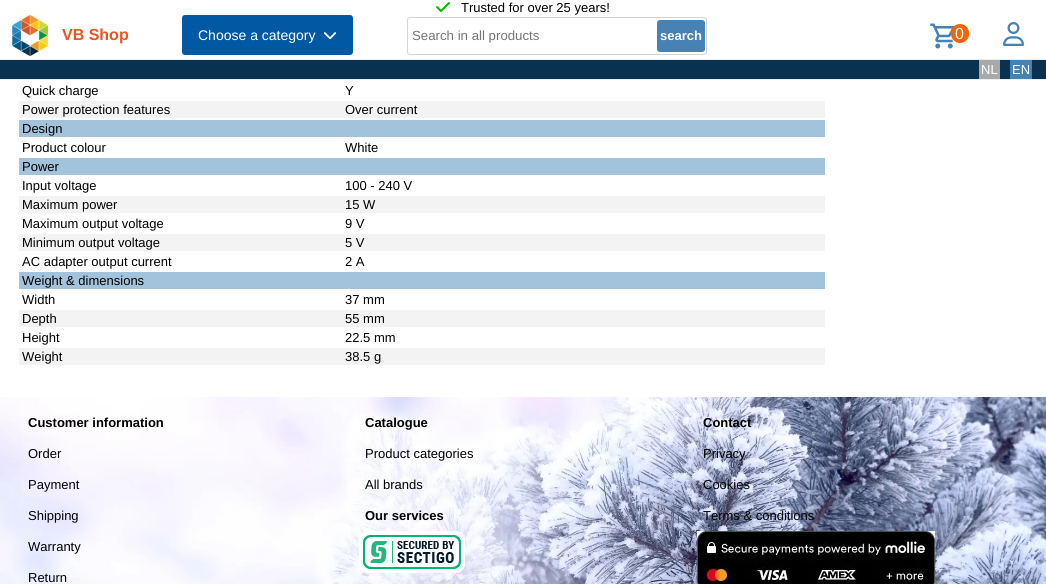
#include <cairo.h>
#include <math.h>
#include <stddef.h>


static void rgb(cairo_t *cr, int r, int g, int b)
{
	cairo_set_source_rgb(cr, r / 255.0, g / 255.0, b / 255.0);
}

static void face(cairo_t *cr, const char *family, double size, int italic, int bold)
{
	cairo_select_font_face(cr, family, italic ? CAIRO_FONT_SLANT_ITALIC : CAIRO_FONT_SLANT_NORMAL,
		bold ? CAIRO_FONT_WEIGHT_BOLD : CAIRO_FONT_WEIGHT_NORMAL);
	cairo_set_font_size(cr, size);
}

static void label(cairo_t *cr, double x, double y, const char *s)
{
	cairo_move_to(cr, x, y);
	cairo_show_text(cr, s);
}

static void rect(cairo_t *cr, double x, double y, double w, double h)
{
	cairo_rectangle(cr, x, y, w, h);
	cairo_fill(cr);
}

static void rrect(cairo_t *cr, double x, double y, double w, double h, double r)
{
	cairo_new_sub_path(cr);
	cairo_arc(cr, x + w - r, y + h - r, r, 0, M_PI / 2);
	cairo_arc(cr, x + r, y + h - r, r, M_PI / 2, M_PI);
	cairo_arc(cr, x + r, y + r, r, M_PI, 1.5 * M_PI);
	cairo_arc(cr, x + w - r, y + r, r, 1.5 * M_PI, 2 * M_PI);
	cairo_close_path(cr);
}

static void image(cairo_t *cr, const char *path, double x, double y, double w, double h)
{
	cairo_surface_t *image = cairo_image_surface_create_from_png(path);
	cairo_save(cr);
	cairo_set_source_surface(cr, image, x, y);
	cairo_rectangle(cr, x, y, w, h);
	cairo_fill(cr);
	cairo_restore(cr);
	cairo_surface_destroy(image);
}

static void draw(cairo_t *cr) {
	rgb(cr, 255, 255, 255);
	cairo_paint(cr);
	rgb(cr, 238, 237, 237);
	rect(cr, 0, 79, 1046, 1);
	image(cr, "image0.png", 436, 2, 14, 10);
	face(cr, "Liberation Sans", 13, 0, 0);
	rgb(cr, 0, 0, 0);
	label(cr, 461, 12, "Trusted for over 25 years!");
	rgb(cr, 238, 237, 237);
	rect(cr, 0, 59, 1046, 1);
	image(cr, "image1.png", 12, 15, 36, 41);
	face(cr, "Liberation Sans", 16, 0, 1);
	rgb(cr, 233, 84, 32);
	label(cr, 62, 40, "VB Shop");
	rgb(cr, 0, 89, 162);
	rrect(cr, 182, 15, 171, 40, 3);
	cairo_fill(cr);
	face(cr, "Liberation Sans", 14, 0, 0);
	rgb(cr, 255, 255, 255);
	label(cr, 198, 40, "Choose a category");
	image(cr, "image2.png", 324, 32, 12, 7);
	rrect(cr, 407.5, 17.5, 299, 37, 2.5);
	rgb(cr, 211, 211, 211);
	cairo_set_line_width(cr, 1);
	cairo_stroke(cr);
	face(cr, "Liberation Sans", 13.25, 0, 0);
	rgb(cr, 117, 117, 117);
	label(cr, 412, 40, "Search in all products");
	rgb(cr, 70, 130, 180);
	rrect(cr, 657, 20, 48, 32, 3);
	cairo_fill(cr);
	face(cr, "Liberation Sans", 13, 0, 1);
	rgb(cr, 255, 255, 255);
	label(cr, 660, 40, "search");
	image(cr, "image3.png", 930, 23, 25, 26);
	rgb(cr, 248, 98, 0);
	rrect(cr, 951, 24, 18, 19, 9);
	cairo_fill(cr);
	face(cr, "Liberation Sans", 16, 0, 0);
	rgb(cr, 255, 255, 255);
	label(cr, 955, 39, "0");
	image(cr, "image4.png", 1003, 22, 21, 24);
	rgb(cr, 8, 50, 80);
	rect(cr, 0, 60, 1046, 19);
	rgb(cr, 169, 169, 169);
	rect(cr, 979, 60, 21, 19);
	face(cr, "Liberation Sans", 13, 0, 0);
	rgb(cr, 255, 255, 255);
	label(cr, 981, 74, "NL");
	rgb(cr, 70, 130, 180);
	rect(cr, 1010, 60, 22, 19);
	rgb(cr, 255, 255, 255);
	label(cr, 1012, 74, "EN");
	rgb(cr, 0, 0, 0);
	label(cr, 22, 95, "Quick charge");
	label(cr, 345, 95, "Y");
	rgb(cr, 243, 243, 243);
	rect(cr, 19, 101, 806, 17);
	rgb(cr, 0, 0, 0);
	label(cr, 22, 114, "Power protection features");
	label(cr, 345, 114, "Over current");
	rgb(cr, 163, 194, 219);
	rect(cr, 19, 120, 806, 17);
	rgb(cr, 0, 0, 0);
	label(cr, 22, 133, "Design");
	label(cr, 22, 152, "Product colour");
	label(cr, 345, 152, "White");
	rgb(cr, 163, 194, 219);
	rect(cr, 19, 158, 806, 17);
	rgb(cr, 0, 0, 0);
	label(cr, 22, 171, "Power");
	label(cr, 22, 190, "Input voltage");
	label(cr, 345, 190, "100 - 240 V");
	rgb(cr, 243, 243, 243);
	rect(cr, 19, 196, 806, 17);
	rgb(cr, 0, 0, 0);
	label(cr, 22, 209, "Maximum power");
	label(cr, 345, 209, "15 W");
	label(cr, 22, 228, "Maximum output voltage");
	label(cr, 345, 228, "9 V");
	rgb(cr, 243, 243, 243);
	rect(cr, 19, 234, 806, 17);
	rgb(cr, 0, 0, 0);
	label(cr, 22, 247, "Minimum output voltage");
	label(cr, 345, 247, "5 V");
	label(cr, 22, 266, "AC adapter output current");
	label(cr, 345, 266, "2 A");
	rgb(cr, 163, 194, 219);
	rect(cr, 19, 272, 806, 17);
	rgb(cr, 0, 0, 0);
	label(cr, 22, 285, "Weight & dimensions");
	label(cr, 22, 304, "Width");
	label(cr, 345, 304, "37 mm");
	rgb(cr, 243, 243, 243);
	rect(cr, 19, 310, 806, 17);
	rgb(cr, 0, 0, 0);
	label(cr, 22, 323, "Depth");
	label(cr, 345, 323, "55 mm");
	label(cr, 22, 342, "Height");
	label(cr, 345, 342, "22.5 mm");
	rgb(cr, 243, 243, 243);
	rect(cr, 19, 348, 806, 17);
	rgb(cr, 0, 0, 0);
	label(cr, 22, 361, "Weight");
	label(cr, 345, 361, "38.5 g");
	image(cr, "image5.png", 0, 397, 1046, 187);
	face(cr, "Liberation Sans", 13, 0, 1);
	label(cr, 28, 427, "Customer information");
	face(cr, "Liberation Sans", 13, 0, 0);
	label(cr, 28, 458, "Order");
	label(cr, 28, 489, "Payment");
	label(cr, 28, 520, "Shipping");
	label(cr, 28, 551, "Warranty");
	label(cr, 28, 582, "Return");
	face(cr, "Liberation Sans", 13, 0, 1);
	label(cr, 365, 427, "Catalogue");
	face(cr, "Liberation Sans", 13, 0, 0);
	label(cr, 365, 458, "Product categories");
	label(cr, 365, 489, "All brands");
	face(cr, "Liberation Sans", 13, 0, 1);
	label(cr, 365, 520, "Our services");
	image(cr, "image6.png", 359, 531, 106, 42);
	label(cr, 703, 427, "Contact");
	face(cr, "Liberation Sans", 13, 0, 0);
	label(cr, 703, 458, "Privacy");
	label(cr, 703, 489, "Cookies");
	label(cr, 703, 520, "Terms & conditions");
	image(cr, "image7.png", 697, 531, 238, 53);
}

int main(void) {
	cairo_surface_t *surface = cairo_image_surface_create(CAIRO_FORMAT_RGB24, 1046, 584);
	cairo_t *cr = cairo_create(surface);
	cairo_font_options_t *options = cairo_font_options_create();
	cairo_font_options_set_hint_metrics(options, CAIRO_HINT_METRICS_OFF);
	cairo_font_options_set_hint_style(options, CAIRO_HINT_STYLE_NONE);
	cairo_set_font_options(cr, options);
	cairo_set_miter_limit(cr, 4);
	draw(cr);
	cairo_surface_write_to_png(surface, "render.png");
	cairo_font_options_destroy(options);
	cairo_destroy(cr);
	cairo_surface_destroy(surface);
	return 0;
}
